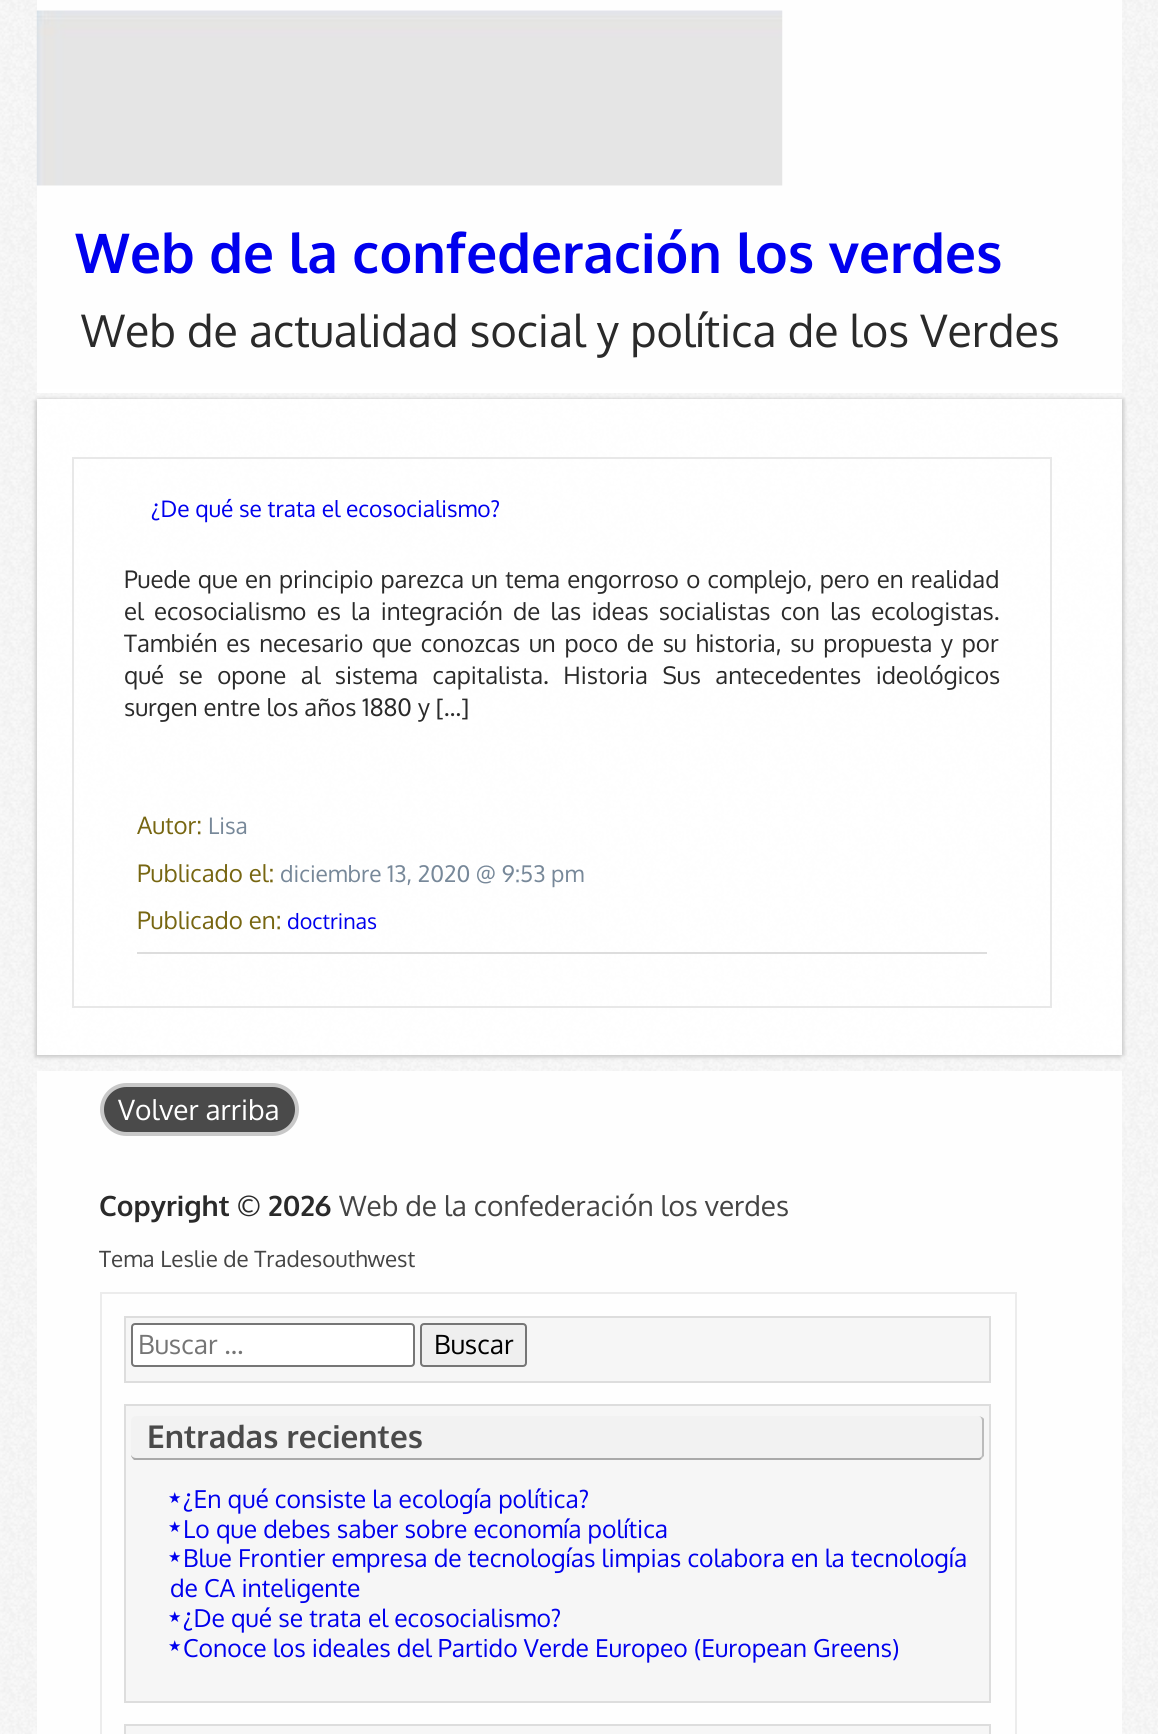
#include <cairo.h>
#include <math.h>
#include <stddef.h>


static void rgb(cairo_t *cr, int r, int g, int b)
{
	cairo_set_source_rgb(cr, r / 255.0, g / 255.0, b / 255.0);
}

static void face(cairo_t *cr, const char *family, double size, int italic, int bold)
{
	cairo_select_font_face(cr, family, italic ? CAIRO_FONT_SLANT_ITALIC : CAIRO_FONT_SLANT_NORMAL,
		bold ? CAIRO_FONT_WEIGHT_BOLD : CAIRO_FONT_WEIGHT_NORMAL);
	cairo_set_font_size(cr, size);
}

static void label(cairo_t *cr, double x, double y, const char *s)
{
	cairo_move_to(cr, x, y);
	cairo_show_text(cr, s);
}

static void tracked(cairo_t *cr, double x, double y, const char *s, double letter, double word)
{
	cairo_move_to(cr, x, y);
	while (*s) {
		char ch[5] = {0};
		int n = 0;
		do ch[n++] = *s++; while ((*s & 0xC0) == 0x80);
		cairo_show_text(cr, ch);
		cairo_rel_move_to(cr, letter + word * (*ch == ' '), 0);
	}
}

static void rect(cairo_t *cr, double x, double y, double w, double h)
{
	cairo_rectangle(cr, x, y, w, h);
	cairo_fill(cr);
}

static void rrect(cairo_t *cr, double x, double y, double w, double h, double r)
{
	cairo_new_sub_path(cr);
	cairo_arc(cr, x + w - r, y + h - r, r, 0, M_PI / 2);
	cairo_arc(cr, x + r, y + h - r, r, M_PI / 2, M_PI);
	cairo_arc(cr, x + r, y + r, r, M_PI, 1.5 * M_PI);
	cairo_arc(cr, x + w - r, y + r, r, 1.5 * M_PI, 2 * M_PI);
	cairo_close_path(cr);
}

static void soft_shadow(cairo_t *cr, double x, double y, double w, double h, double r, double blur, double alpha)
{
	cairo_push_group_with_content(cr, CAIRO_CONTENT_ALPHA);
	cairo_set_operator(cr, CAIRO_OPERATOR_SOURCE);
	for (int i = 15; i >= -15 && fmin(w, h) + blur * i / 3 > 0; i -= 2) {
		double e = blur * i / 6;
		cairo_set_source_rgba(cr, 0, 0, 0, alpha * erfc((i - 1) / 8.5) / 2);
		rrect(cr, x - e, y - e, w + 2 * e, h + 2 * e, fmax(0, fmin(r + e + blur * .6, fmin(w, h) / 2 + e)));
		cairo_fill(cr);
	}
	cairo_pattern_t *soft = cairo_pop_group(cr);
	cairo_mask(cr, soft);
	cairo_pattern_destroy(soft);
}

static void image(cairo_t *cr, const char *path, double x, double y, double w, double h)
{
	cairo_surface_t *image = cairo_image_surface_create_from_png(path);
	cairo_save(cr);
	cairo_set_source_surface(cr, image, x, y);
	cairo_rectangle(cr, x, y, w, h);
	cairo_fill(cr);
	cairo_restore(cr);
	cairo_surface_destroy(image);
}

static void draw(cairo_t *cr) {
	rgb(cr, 255, 255, 255);
	cairo_paint(cr);
	image(cr, "image0.png", 0, 0, 1158, 1734);
	cairo_set_source_rgba(cr, 1, 1, 1, 0.9);
	rect(cr, 37, 0, 1085, 389);
	rgb(cr, 255, 255, 255);
	rect(cr, 37, 389, 1085, 4);
	image(cr, "image1.png", 36, 10, 747, 176);
	face(cr, "Oxygen", 54.9, 0, 1);
	rgb(cr, 0, 0, 238);
	label(cr, 75, 273, "Web de la confederación los verdes");
	face(cr, "Oxygen", 44.8, 0, 0);
	rgb(cr, 42, 42, 42);
	label(cr, 81, 347, "Web de actualidad social y política de los Verdes");
	cairo_save(cr);
	cairo_set_fill_rule(cr, CAIRO_FILL_RULE_EVEN_ODD);
	cairo_new_path(cr);
	cairo_move_to(cr, 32, 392);
	cairo_line_to(cr, 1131, 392);
	cairo_line_to(cr, 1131, 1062);
	cairo_line_to(cr, 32, 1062);
	cairo_close_path(cr);
	cairo_move_to(cr, 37, 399);
	cairo_line_to(cr, 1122, 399);
	cairo_line_to(cr, 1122, 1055);
	cairo_line_to(cr, 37, 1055);
	cairo_close_path(cr);
	cairo_clip(cr);
	rgb(cr, 204, 204, 204);
	soft_shadow(cr, 39, 399, 1085, 656, 0, 2, 1);
	cairo_restore(cr);
	cairo_save(cr);
	cairo_set_fill_rule(cr, CAIRO_FILL_RULE_EVEN_ODD);
	cairo_new_path(cr);
	cairo_move_to(cr, 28, 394);
	cairo_line_to(cr, 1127, 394);
	cairo_line_to(cr, 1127, 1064);
	cairo_line_to(cr, 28, 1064);
	cairo_close_path(cr);
	cairo_move_to(cr, 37, 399);
	cairo_line_to(cr, 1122, 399);
	cairo_line_to(cr, 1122, 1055);
	cairo_line_to(cr, 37, 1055);
	cairo_close_path(cr);
	cairo_clip(cr);
	rgb(cr, 204, 204, 204);
	soft_shadow(cr, 35, 401, 1085, 656, 0, 2, 1);
	cairo_restore(cr);
	cairo_set_source_rgba(cr, 1, 1, 1, 0.95);
	rect(cr, 37, 399, 1085, 656);
	cairo_rectangle(cr, 73, 458, 978, 549);
	rgb(cr, 232, 232, 232);
	cairo_stroke(cr);
	face(cr, "Oxygen", 22.75, 0, 0);
	rgb(cr, 0, 0, 238);
	label(cr, 151, 517, "¿De qué se trata el ecosocialismo?");
	face(cr, "Oxygen", 24, 0, 0);
	rgb(cr, 42, 42, 42);
	tracked(cr, 124, 588, "Puede que en principio parezca un tema engorroso o complejo, pero en realidad", 0, 1.2);
	tracked(cr, 124, 620, "el ecosocialismo es la integración de las ideas socialistas con las ecologistas.", 0, 4.25);
	tracked(cr, 124, 652, "También es necesario que conozcas un poco de su historia, su propuesta y por", 0, 2.75);
	tracked(cr, 124, 684, "qué se opone al sistema capitalista. Historia Sus antecedentes ideológicos", 0, 8.5);
	label(cr, 124, 716, "surgen entre los años 1880 y […]");
	rgb(cr, 221, 221, 221);
	rect(cr, 137, 952, 850, 2);
	rgb(cr, 119, 102, 17);
	label(cr, 137, 834, "Autor:");
	face(cr, "Oxygen", 22.75, 0, 0);
	rgb(cr, 119, 136, 153);
	label(cr, 208, 834, "Lisa");
	face(cr, "Oxygen", 24, 0, 0);
	rgb(cr, 119, 102, 17);
	label(cr, 137, 882, "Publicado el:");
	face(cr, "Oxygen", 22.75, 0, 0);
	rgb(cr, 119, 136, 153);
	label(cr, 280, 882, "diciembre 13, 2020 @ 9:53 pm");
	face(cr, "Oxygen", 24, 0, 0);
	rgb(cr, 119, 102, 17);
	label(cr, 137, 929, "Publicado en:");
	face(cr, "Oxygen", 21.5, 0, 0);
	rgb(cr, 0, 0, 238);
	label(cr, 287, 929, "doctrinas");
	cairo_set_source_rgba(cr, 1, 1, 1, 0.9);
	rect(cr, 37, 1071, 1085, 663);
	rgb(cr, 74, 74, 74);
	rrect(cr, 102, 1085, 195, 49, 24.5);
	cairo_fill_preserve(cr);
	rgb(cr, 200, 200, 200);
	cairo_set_line_width(cr, 4);
	cairo_stroke(cr);
	face(cr, "Oxygen", 28, 0, 0);
	rgb(cr, 255, 255, 255);
	label(cr, 118, 1120, "Volver arriba");
	face(cr, "Oxygen", 28, 0, 1);
	rgb(cr, 42, 42, 42);
	label(cr, 99, 1216, "Copyright © 2026");
	face(cr, "Oxygen", 28, 0, 0);
	rgb(cr, 68, 68, 68);
	label(cr, 339, 1216, "Web de la confederación los verdes");
	face(cr, "Oxygen", 22.4, 0, 0);
	label(cr, 99, 1267, "Tema Leslie de Tradesouthwest");
	cairo_rectangle(cr, 101, 1293, 915, 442);
	rgb(cr, 236, 236, 236);
	cairo_set_line_width(cr, 2);
	cairo_stroke(cr);
	rgb(cr, 246, 246, 246);
	cairo_rectangle(cr, 125, 1317, 865, 65);
	cairo_fill_preserve(cr);
	rgb(cr, 221, 221, 221);
	cairo_stroke(cr);
	rgb(cr, 255, 255, 255);
	rrect(cr, 132, 1324, 282, 42, 3);
	cairo_fill_preserve(cr);
	rgb(cr, 118, 118, 118);
	cairo_stroke(cr);
	face(cr, "Oxygen", 26.5, 0, 0);
	rgb(cr, 117, 117, 117);
	label(cr, 138, 1354, "Buscar …");
	rgb(cr, 239, 239, 239);
	rrect(cr, 421, 1324, 105, 42, 3);
	cairo_fill_preserve(cr);
	rgb(cr, 118, 118, 118);
	cairo_stroke(cr);
	rgb(cr, 0, 0, 0);
	label(cr, 434, 1354, "Buscar");
	rgb(cr, 246, 246, 246);
	cairo_rectangle(cr, 125, 1405, 865, 297);
	cairo_fill_preserve(cr);
	rgb(cr, 221, 221, 221);
	cairo_stroke(cr);
	rgb(cr, 242, 242, 242);
	rrect(cr, 131, 1416, 853, 44, 5);
	cairo_fill(cr);
	rgb(cr, 187, 187, 187);
	cairo_new_path(cr);
	cairo_move_to(cr, 981, 1457);
	cairo_curve_to(cr, 982, 1456, 982, 1455, 982, 1454);
	cairo_line_to(cr, 982, 1421);
	cairo_curve_to(cr, 982, 1418, 980, 1416, 978, 1416);
	cairo_curve_to(cr, 979, 1416, 983, 1417, 984, 1419);
	cairo_line_to(cr, 984, 1456);
	cairo_line_to(cr, 982, 1458);
	cairo_close_path(cr);
	cairo_fill(cr);
	rgb(cr, 170, 170, 170);
	cairo_new_path(cr);
	cairo_move_to(cr, 131, 1455);
	cairo_curve_to(cr, 132, 1457, 134, 1458, 136, 1458);
	cairo_line_to(cr, 978, 1458);
	cairo_curve_to(cr, 979, 1458, 980, 1458, 981, 1457);
	cairo_line_to(cr, 982, 1458);
	cairo_line_to(cr, 980, 1460);
	cairo_line_to(cr, 134, 1460);
	cairo_curve_to(cr, 133, 1459, 131, 1457, 131, 1455);
	cairo_close_path(cr);
	cairo_fill(cr);
	face(cr, "Oxygen", 31.5, 0, 1);
	rgb(cr, 74, 74, 74);
	label(cr, 147, 1448, "Entradas recientes");
	face(cr, "DejaVu Sans", 15, 0, 0);
	rgb(cr, 0, 0, 238);
	label(cr, 168, 1503, "★");
	face(cr, "Oxygen", 24.65, 0, 0);
	label(cr, 183, 1508, "¿En qué consiste la ecología política?");
	face(cr, "DejaVu Sans", 15, 0, 0);
	label(cr, 168, 1532, "★");
	face(cr, "Oxygen", 24.65, 0, 0);
	label(cr, 183, 1538, "Lo que debes saber sobre economía política");
	face(cr, "DejaVu Sans", 15, 0, 0);
	label(cr, 168, 1562, "★");
	face(cr, "Oxygen", 24.65, 0, 0);
	label(cr, 183, 1567, "Blue Frontier empresa de tecnologías limpias colabora en la tecnología");
	label(cr, 170, 1597, "de CA inteligente");
	face(cr, "DejaVu Sans", 15, 0, 0);
	label(cr, 168, 1622, "★");
	face(cr, "Oxygen", 24.65, 0, 0);
	label(cr, 183, 1627, "¿De qué se trata el ecosocialismo?");
	face(cr, "DejaVu Sans", 15, 0, 0);
	label(cr, 168, 1651, "★");
	face(cr, "Oxygen", 24.65, 0, 0);
	label(cr, 183, 1657, "Conoce los ideales del Partido Verde Europeo (European Greens)");
	rgb(cr, 246, 246, 246);
	cairo_rectangle(cr, 125, 1725, 865, 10);
	cairo_fill_preserve(cr);
	rgb(cr, 221, 221, 221);
	cairo_stroke(cr);
}

int main(void) {
	cairo_surface_t *surface = cairo_image_surface_create(CAIRO_FORMAT_RGB24, 1158, 1734);
	cairo_t *cr = cairo_create(surface);
	cairo_font_options_t *options = cairo_font_options_create();
	cairo_font_options_set_hint_metrics(options, CAIRO_HINT_METRICS_OFF);
	cairo_font_options_set_hint_style(options, CAIRO_HINT_STYLE_NONE);
	cairo_set_font_options(cr, options);
	cairo_set_miter_limit(cr, 4);
	draw(cr);
	cairo_surface_write_to_png(surface, "render.png");
	cairo_font_options_destroy(options);
	cairo_destroy(cr);
	cairo_surface_destroy(surface);
	return 0;
}
